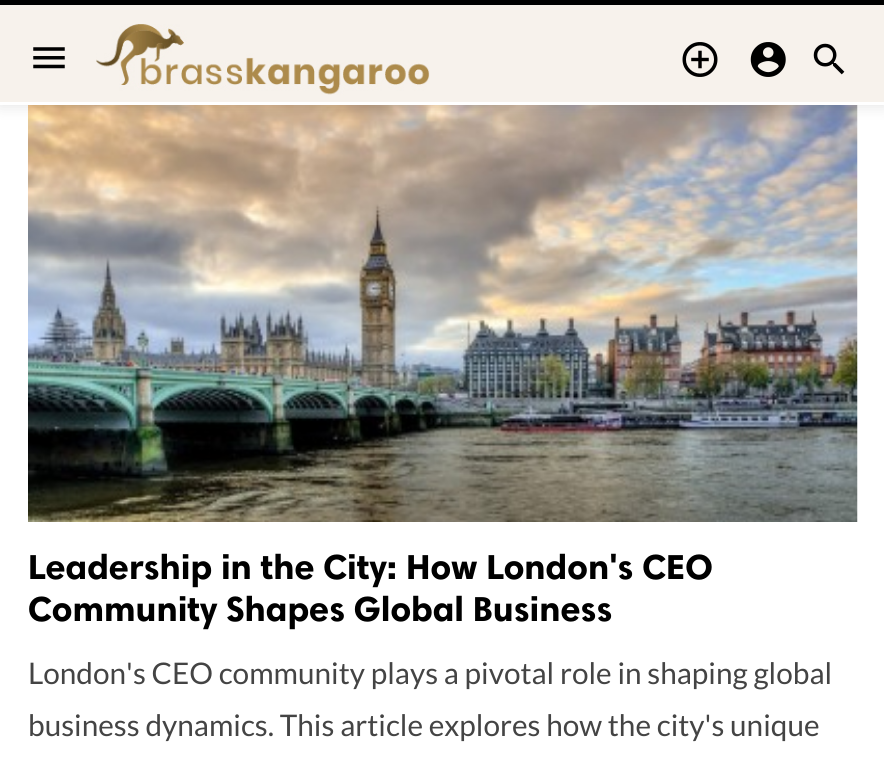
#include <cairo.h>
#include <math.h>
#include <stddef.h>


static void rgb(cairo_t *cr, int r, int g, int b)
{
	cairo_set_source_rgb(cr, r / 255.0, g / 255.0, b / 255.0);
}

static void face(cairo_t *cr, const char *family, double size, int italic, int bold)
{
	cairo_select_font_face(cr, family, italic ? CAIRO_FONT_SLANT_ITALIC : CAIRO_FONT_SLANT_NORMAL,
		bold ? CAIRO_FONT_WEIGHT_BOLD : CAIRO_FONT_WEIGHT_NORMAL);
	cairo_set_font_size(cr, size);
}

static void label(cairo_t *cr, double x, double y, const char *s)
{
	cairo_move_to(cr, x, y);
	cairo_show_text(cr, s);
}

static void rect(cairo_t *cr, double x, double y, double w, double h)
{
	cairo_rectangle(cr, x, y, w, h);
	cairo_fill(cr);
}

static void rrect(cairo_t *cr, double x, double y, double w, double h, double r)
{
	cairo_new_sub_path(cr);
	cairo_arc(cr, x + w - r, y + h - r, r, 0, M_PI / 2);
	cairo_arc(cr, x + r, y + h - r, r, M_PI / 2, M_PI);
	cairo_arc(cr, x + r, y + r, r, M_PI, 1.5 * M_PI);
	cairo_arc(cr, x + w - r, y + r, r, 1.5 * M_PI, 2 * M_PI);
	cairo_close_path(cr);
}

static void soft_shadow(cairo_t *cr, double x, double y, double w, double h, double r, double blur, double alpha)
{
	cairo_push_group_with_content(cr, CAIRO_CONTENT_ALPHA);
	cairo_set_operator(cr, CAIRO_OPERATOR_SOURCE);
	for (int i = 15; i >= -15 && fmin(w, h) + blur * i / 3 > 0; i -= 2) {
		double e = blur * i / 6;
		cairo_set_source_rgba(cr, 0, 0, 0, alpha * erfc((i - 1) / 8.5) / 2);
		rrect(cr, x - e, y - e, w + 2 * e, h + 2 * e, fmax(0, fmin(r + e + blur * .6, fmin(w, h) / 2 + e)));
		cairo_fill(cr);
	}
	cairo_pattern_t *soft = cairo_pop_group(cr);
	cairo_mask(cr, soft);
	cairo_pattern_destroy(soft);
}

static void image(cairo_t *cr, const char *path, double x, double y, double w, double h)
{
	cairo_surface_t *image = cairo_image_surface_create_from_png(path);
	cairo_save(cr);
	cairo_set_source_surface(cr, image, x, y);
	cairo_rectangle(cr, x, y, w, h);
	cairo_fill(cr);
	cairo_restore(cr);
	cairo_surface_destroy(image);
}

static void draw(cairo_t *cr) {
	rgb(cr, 255, 255, 255);
	cairo_paint(cr);
	image(cr, "image5.png", 28, 105, 830, 417);
	rgb(cr, 0, 0, 0);
	soft_shadow(cr, 0, 2, 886, 105, 0, 7, 0.1);
	rgb(cr, 255, 255, 255);
	rect(cr, 0, 102, 884, 3);
	rgb(cr, 247, 242, 236);
	rect(cr, 0, 5, 884, 97);
	rgb(cr, 0, 0, 0);
	rect(cr, 0, 0, 884, 5);
	image(cr, "image0.png", 33, 47, 32, 22);
	image(cr, "image1.png", 96, 24, 334, 71);
	image(cr, "image2.png", 682, 42, 36, 35);
	image(cr, "image3.png", 750, 42, 36, 35);
	image(cr, "image4.png", 813, 43, 32, 32);
	face(cr, "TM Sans", 35, 0, 1);
	label(cr, 28, 579, "Leadership in the City: How London's CEO");
	label(cr, 28, 621, "Community Shapes Global Business");
	face(cr, "Lato", 29.75, 0, 0);
	rgb(cr, 68, 68, 68);
	label(cr, 28, 684, "London's CEO community plays a pivotal role in shaping global");
	label(cr, 28, 736, "business dynamics. This article explores how the city's unique");
}

int main(void) {
	cairo_surface_t *surface = cairo_image_surface_create(CAIRO_FORMAT_RGB24, 884, 760);
	cairo_t *cr = cairo_create(surface);
	cairo_font_options_t *options = cairo_font_options_create();
	cairo_font_options_set_hint_metrics(options, CAIRO_HINT_METRICS_OFF);
	cairo_font_options_set_hint_style(options, CAIRO_HINT_STYLE_NONE);
	cairo_set_font_options(cr, options);
	cairo_set_miter_limit(cr, 4);
	draw(cr);
	cairo_surface_write_to_png(surface, "render.png");
	cairo_font_options_destroy(options);
	cairo_destroy(cr);
	cairo_surface_destroy(surface);
	return 0;
}
